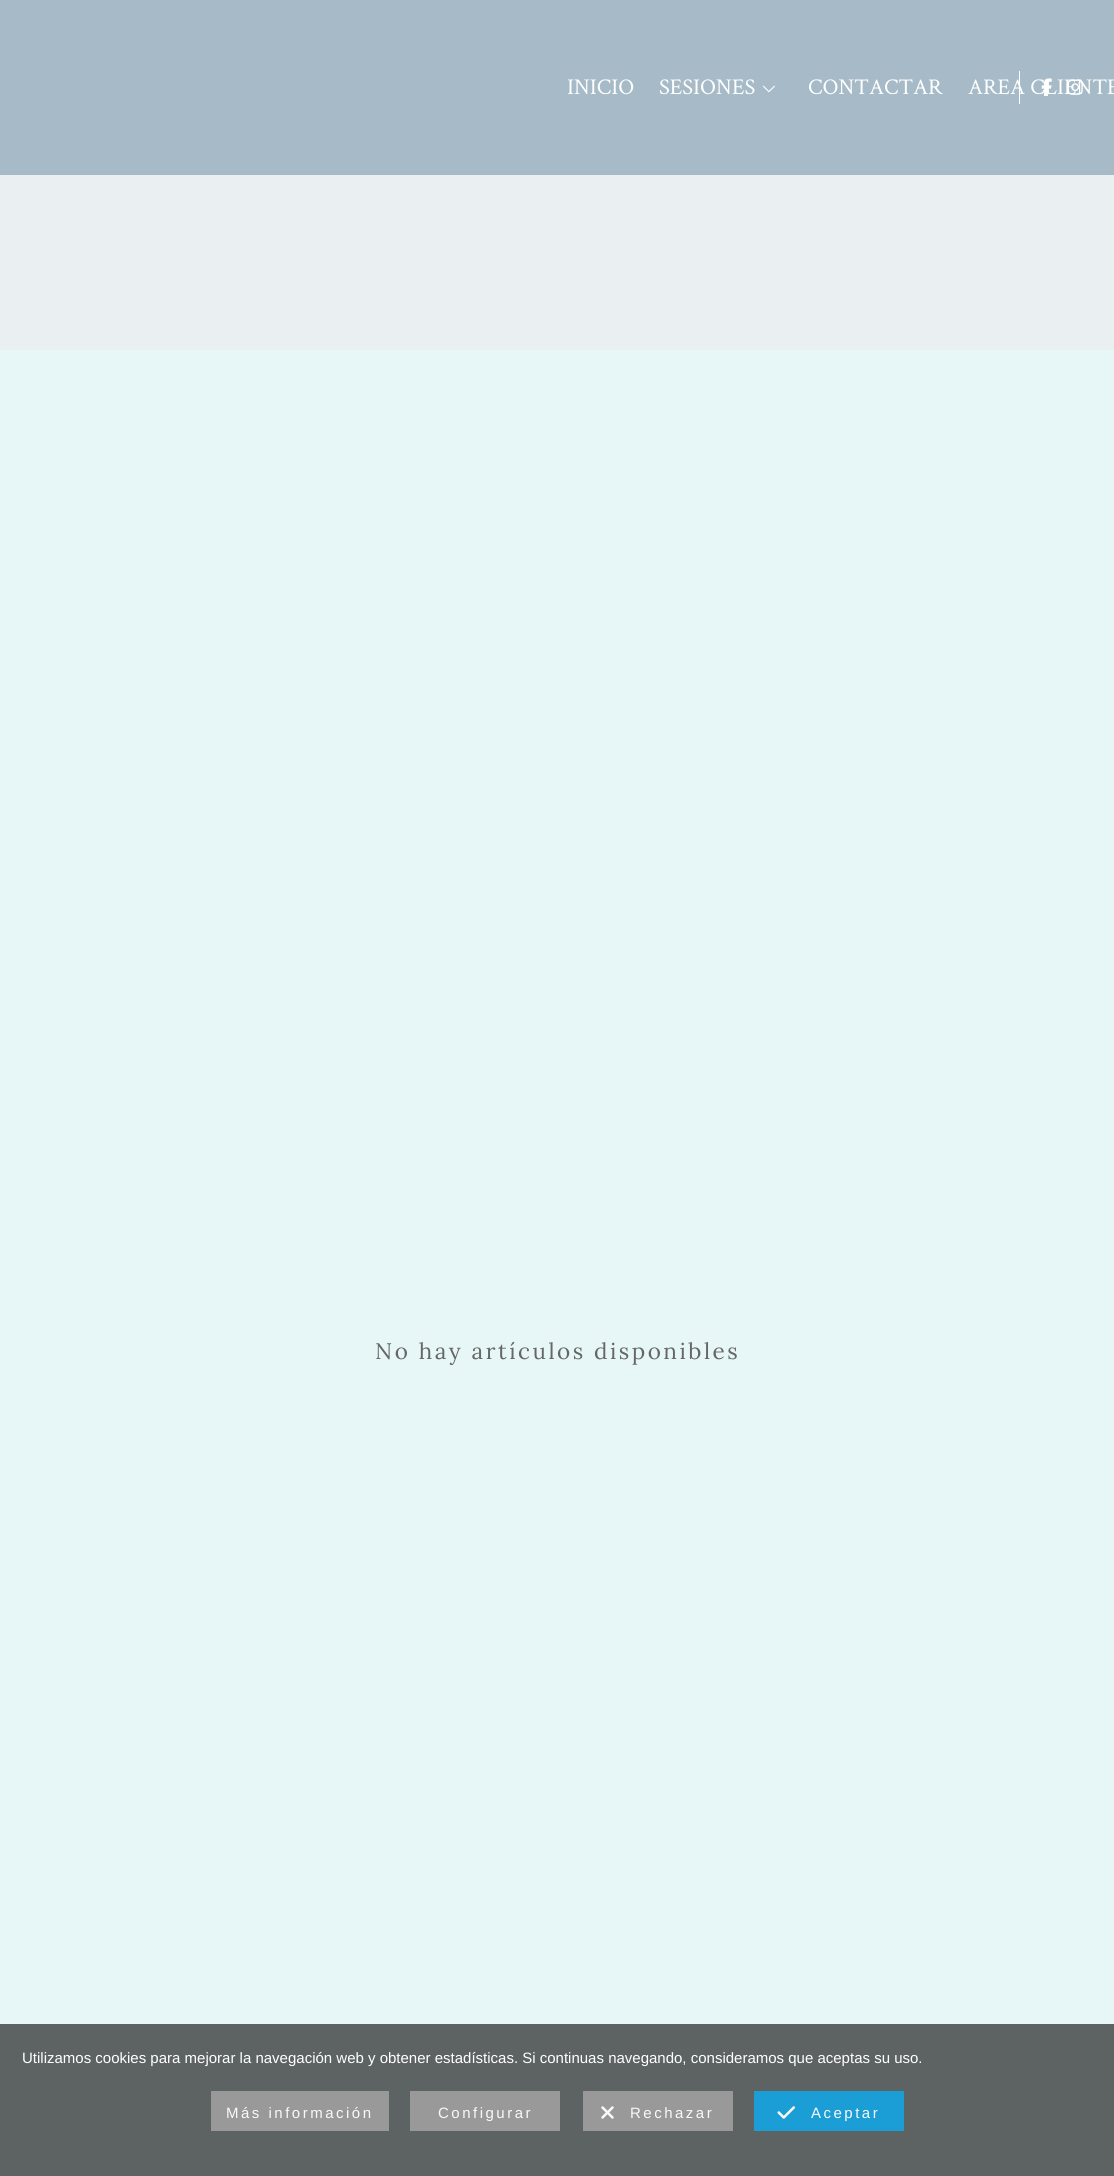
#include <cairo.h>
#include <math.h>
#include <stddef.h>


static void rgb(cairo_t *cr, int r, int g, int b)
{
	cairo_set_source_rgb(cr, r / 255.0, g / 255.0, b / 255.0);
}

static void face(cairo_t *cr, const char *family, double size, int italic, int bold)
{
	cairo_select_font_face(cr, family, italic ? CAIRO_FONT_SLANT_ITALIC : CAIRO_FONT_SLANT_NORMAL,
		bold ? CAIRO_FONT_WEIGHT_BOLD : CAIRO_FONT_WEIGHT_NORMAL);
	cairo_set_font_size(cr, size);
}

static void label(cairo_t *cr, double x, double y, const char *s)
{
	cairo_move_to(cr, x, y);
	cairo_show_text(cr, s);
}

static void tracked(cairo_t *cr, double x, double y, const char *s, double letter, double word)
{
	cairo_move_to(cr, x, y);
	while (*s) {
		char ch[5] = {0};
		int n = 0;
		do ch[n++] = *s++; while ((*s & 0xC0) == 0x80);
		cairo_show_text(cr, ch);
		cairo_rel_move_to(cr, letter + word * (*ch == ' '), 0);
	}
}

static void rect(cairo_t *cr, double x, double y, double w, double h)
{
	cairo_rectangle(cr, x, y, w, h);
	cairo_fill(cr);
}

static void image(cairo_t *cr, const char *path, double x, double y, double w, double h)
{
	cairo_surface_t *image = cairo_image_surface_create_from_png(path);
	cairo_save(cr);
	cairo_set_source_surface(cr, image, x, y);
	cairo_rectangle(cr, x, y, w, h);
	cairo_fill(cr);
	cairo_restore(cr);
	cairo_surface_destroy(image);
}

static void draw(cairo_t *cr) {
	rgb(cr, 234, 240, 242);
	cairo_paint(cr);
	rgb(cr, 166, 187, 199);
	rect(cr, 0, 0, 1114, 175);
	rgb(cr, 255, 255, 255);
	rect(cr, 1019, 71, 1, 33);
	image(cr, "image0.png", 1041, 78, 11, 18);
	image(cr, "image1.png", 1067, 79, 16, 16);
	face(cr, "Crimson Text", 22.5, 0, 0);
	label(cr, 567, 94, "INICIO");
	label(cr, 659, 94, "SESIONES");
	image(cr, "image2.png", 763, 85, 12, 8);
	label(cr, 808, 94, "CONTACTAR");
	label(cr, 968, 94, "AREA CLIENTE");
	rgb(cr, 231, 247, 247);
	rect(cr, 0, 350, 1114, 1674);
	face(cr, "Lora", 22.5, 0, 0);
	rgb(cr, 102, 102, 102);
	tracked(cr, 375, 1359, "No hay artículos disponibles", 2.5, 0);
	rgb(cr, 93, 99, 99);
	rect(cr, 0, 2024, 1114, 152);
	face(cr, "Liberation Sans", 15, 0, 0);
	rgb(cr, 255, 255, 255);
	label(cr, 22, 2063, "Utilizamos cookies para mejorar la navegación web y obtener estadísticas. Si continuas navegando, consideramos que aceptas su uso.");
	rgb(cr, 153, 153, 153);
	rect(cr, 211, 2091, 178, 40);
	rgb(cr, 249, 249, 249);
	tracked(cr, 226, 2118, "Más información", 2.5, 0);
	rgb(cr, 153, 153, 153);
	rect(cr, 410, 2091, 150, 40);
	rgb(cr, 249, 249, 249);
	tracked(cr, 438, 2118, "Configurar", 2.5, 0);
	rgb(cr, 153, 153, 153);
	rect(cr, 583, 2091, 150, 40);
	image(cr, "image3.png", 601, 2106, 13, 13);
	rgb(cr, 249, 249, 249);
	tracked(cr, 630, 2118, "Rechazar", 2.5, 0);
	rgb(cr, 26, 158, 213);
	rect(cr, 754, 2091, 150, 40);
	image(cr, "image4.png", 777, 2106, 18, 13);
	rgb(cr, 249, 249, 249);
	tracked(cr, 811, 2118, "Aceptar", 2.5, 0);
}

int main(void) {
	cairo_surface_t *surface = cairo_image_surface_create(CAIRO_FORMAT_RGB24, 1114, 2176);
	cairo_t *cr = cairo_create(surface);
	cairo_font_options_t *options = cairo_font_options_create();
	cairo_font_options_set_hint_metrics(options, CAIRO_HINT_METRICS_OFF);
	cairo_font_options_set_hint_style(options, CAIRO_HINT_STYLE_NONE);
	cairo_set_font_options(cr, options);
	cairo_set_miter_limit(cr, 4);
	draw(cr);
	cairo_surface_write_to_png(surface, "render.png");
	cairo_font_options_destroy(options);
	cairo_destroy(cr);
	cairo_surface_destroy(surface);
	return 0;
}
